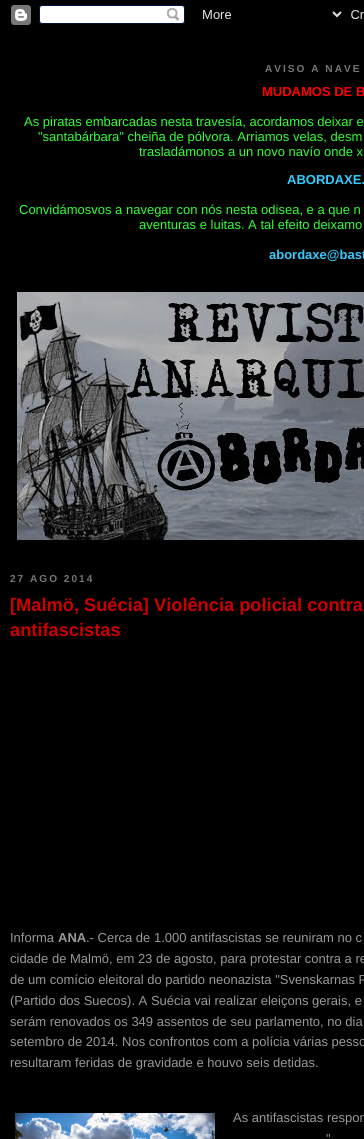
#include <cairo.h>
#include <math.h>
#include <stddef.h>


static void rgb(cairo_t *cr, int r, int g, int b)
{
	cairo_set_source_rgb(cr, r / 255.0, g / 255.0, b / 255.0);
}

static void face(cairo_t *cr, const char *family, double size, int italic, int bold)
{
	cairo_select_font_face(cr, family, italic ? CAIRO_FONT_SLANT_ITALIC : CAIRO_FONT_SLANT_NORMAL,
		bold ? CAIRO_FONT_WEIGHT_BOLD : CAIRO_FONT_WEIGHT_NORMAL);
	cairo_set_font_size(cr, size);
}

static void label(cairo_t *cr, double x, double y, const char *s)
{
	cairo_move_to(cr, x, y);
	cairo_show_text(cr, s);
}

static void tracked(cairo_t *cr, double x, double y, const char *s, double letter, double word)
{
	cairo_move_to(cr, x, y);
	while (*s) {
		char ch[5] = {0};
		int n = 0;
		do ch[n++] = *s++; while ((*s & 0xC0) == 0x80);
		cairo_show_text(cr, ch);
		cairo_rel_move_to(cr, letter + word * (*ch == ' '), 0);
	}
}

static void image(cairo_t *cr, const char *path, double x, double y, double w, double h)
{
	cairo_surface_t *image = cairo_image_surface_create_from_png(path);
	cairo_save(cr);
	cairo_set_source_surface(cr, image, x, y);
	cairo_rectangle(cr, x, y, w, h);
	cairo_fill(cr);
	cairo_restore(cr);
	cairo_surface_destroy(image);
}

static void draw(cairo_t *cr) {
	rgb(cr, 0, 0, 0);
	cairo_paint(cr);
	image(cr, "image0.png", 11, 5, 353, 20);
	face(cr, "Liberation Sans", 10.1, 0, 1);
	rgb(cr, 119, 119, 119);
	tracked(cr, 265, 72, "AVISO A NAVE", 2, 0);
	face(cr, "Liberation Sans", 13, 0, 1);
	rgb(cr, 255, 0, 0);
	label(cr, 262, 96, "MUDAMOS DE B");
	face(cr, "Liberation Sans", 13, 0, 0);
	rgb(cr, 51, 255, 51);
	label(cr, 24, 126, "As piratas embarcadas nesta travesía, acordamos deixar e");
	label(cr, 38, 141, "\"santabárbara\" cheiña de pólvora. Arriamos velas, desm");
	label(cr, 139, 156, "trasladámonos a un novo navío onde x");
	face(cr, "Liberation Sans", 13, 0, 1);
	rgb(cr, 51, 204, 255);
	label(cr, 287, 184, "ABORDAXE.");
	face(cr, "Liberation Sans", 13, 0, 0);
	rgb(cr, 51, 255, 51);
	label(cr, 19, 214, "Convidámosvos a navegar con nós nesta odisea, e a que n");
	label(cr, 139, 229, "aventuras e luitas. A tal efeito deixamo");
	face(cr, "Liberation Sans", 13, 0, 1);
	rgb(cr, 51, 204, 255);
	label(cr, 269, 259, "abordaxe@bast");
	image(cr, "image1.png", 17, 292, 347, 248);
	face(cr, "Liberation Sans", 10.1, 0, 1);
	rgb(cr, 119, 119, 119);
	tracked(cr, 10, 582, "27 AGO 2014", 2, 0);
	face(cr, "Liberation Sans", 18.25, 0, 1);
	rgb(cr, 204, 0, 0);
	label(cr, 10, 611, "[Malmö, Suécia] Violência policial contra");
	label(cr, 10, 636, "antifascistas");
	face(cr, "Liberation Sans", 13, 0, 0);
	rgb(cr, 153, 153, 153);
	label(cr, 10, 942, "Informa");
	face(cr, "Liberation Sans", 13, 0, 1);
	label(cr, 58, 942, "ANA");
	face(cr, "Liberation Sans", 13, 0, 0);
	label(cr, 86, 942, ".- Cerca de 1.000 antifascistas se reuniram no c");
	label(cr, 10, 963, "cidade de Malmö, em 23 de agosto, para protestar contra a re");
	label(cr, 10, 984, "de um comício eleitoral do partido neonazista \"Svenskarnas P");
	label(cr, 10, 1005, "(Partido dos Suecos). A Suécia vai realizar eleiçons gerais, e");
	label(cr, 10, 1026, "serám renovados os 349 assentos de seu parlamento, no dia");
	label(cr, 10, 1046, "setembro de 2014. Nos confrontos com a polícia várias pesso");
	label(cr, 10, 1067, "resultaram feridas de gravidade e houvo seis detidas.");
	image(cr, "image2.png", 15, 1113, 200, 26);
	label(cr, 233, 1122, "As antifascistas respon");
	label(cr, 326, 1143, "\"");
}

int main(void) {
	cairo_surface_t *surface = cairo_image_surface_create(CAIRO_FORMAT_RGB24, 364, 1139);
	cairo_t *cr = cairo_create(surface);
	cairo_font_options_t *options = cairo_font_options_create();
	cairo_font_options_set_hint_metrics(options, CAIRO_HINT_METRICS_OFF);
	cairo_font_options_set_hint_style(options, CAIRO_HINT_STYLE_NONE);
	cairo_set_font_options(cr, options);
	cairo_set_miter_limit(cr, 4);
	draw(cr);
	cairo_surface_write_to_png(surface, "render.png");
	cairo_font_options_destroy(options);
	cairo_destroy(cr);
	cairo_surface_destroy(surface);
	return 0;
}
